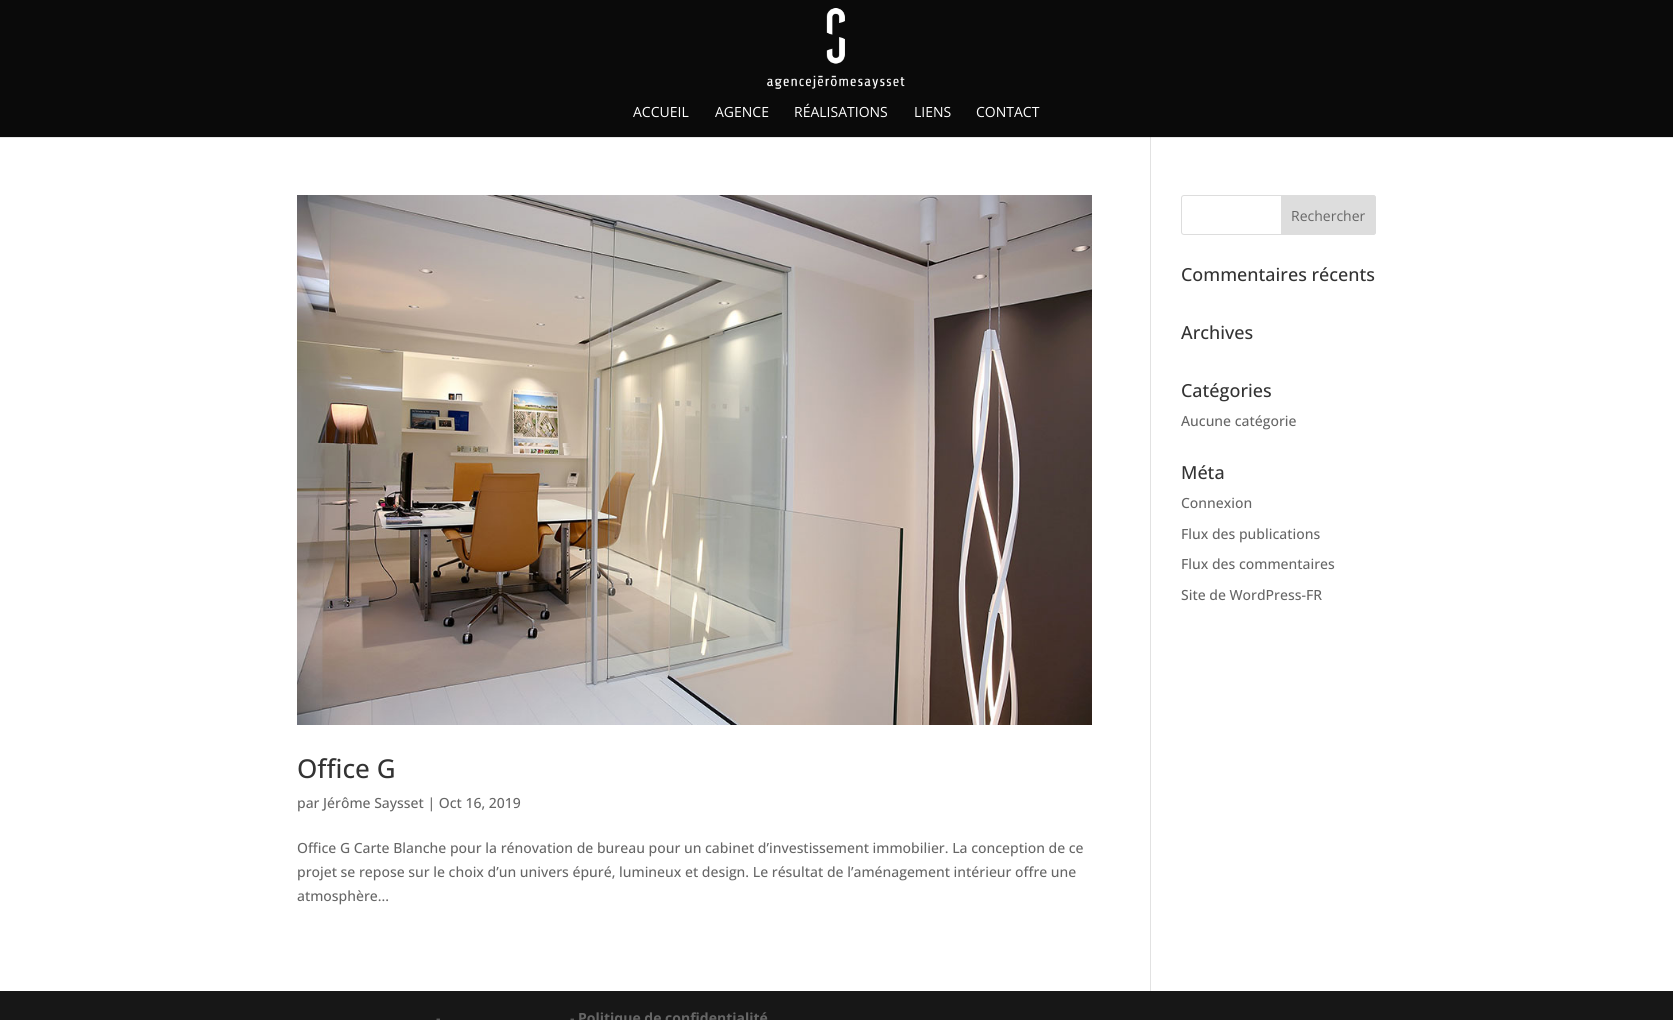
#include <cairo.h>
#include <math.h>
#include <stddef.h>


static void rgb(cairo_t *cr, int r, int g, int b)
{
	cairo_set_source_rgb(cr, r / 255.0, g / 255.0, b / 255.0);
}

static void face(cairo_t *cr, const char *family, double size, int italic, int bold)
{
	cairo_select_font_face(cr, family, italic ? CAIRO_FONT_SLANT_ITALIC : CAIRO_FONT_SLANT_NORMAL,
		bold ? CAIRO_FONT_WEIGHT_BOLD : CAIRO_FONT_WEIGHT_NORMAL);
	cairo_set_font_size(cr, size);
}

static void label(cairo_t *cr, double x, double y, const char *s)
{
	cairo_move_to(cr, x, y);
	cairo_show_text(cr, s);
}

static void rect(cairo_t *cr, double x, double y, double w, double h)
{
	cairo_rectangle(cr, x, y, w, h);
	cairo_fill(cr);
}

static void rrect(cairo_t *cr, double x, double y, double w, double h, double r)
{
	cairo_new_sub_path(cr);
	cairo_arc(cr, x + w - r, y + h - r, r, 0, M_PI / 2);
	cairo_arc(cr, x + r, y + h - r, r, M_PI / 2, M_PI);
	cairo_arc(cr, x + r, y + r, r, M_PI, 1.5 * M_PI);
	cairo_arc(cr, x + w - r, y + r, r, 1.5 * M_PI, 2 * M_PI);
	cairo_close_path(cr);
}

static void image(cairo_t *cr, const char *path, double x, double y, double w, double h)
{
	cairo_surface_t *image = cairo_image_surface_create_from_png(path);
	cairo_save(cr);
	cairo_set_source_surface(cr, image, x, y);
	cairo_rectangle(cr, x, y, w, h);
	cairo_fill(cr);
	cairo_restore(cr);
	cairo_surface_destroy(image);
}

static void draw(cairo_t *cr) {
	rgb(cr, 255, 255, 255);
	cairo_paint(cr);
	rgb(cr, 230, 230, 230);
	rect(cr, 0, 137, 1673, 1);
	rgb(cr, 10, 10, 10);
	rect(cr, 0, 0, 1673, 137);
	image(cr, "image0.png", 767, 8, 138, 81);
	face(cr, "Open Sans", 14, 0, 0);
	rgb(cr, 255, 255, 255);
	label(cr, 633, 117, "ACCUEIL");
	label(cr, 715, 117, "AGENCE");
	label(cr, 794, 117, "RÉALISATIONS");
	label(cr, 914, 117, "LIENS");
	label(cr, 976, 117, "CONTACT");
	rgb(cr, 226, 226, 226);
	rect(cr, 1150, 137, 1, 854);
	rgb(cr, 203, 203, 203);
	rect(cr, 1150, 137, 1, 1);
	rrect(cr, 1181.5, 195.5, 194, 39, 2.5);
	rgb(cr, 221, 221, 221);
	cairo_set_line_width(cr, 1);
	cairo_stroke(cr);
	cairo_new_path(cr);
	cairo_move_to(cr, 1281.5, 195.5);
	cairo_line_to(cr, 1373, 195.5);
	cairo_curve_to(cr, 1374.5, 195.5, 1375.5, 196.5, 1375.5, 198);
	cairo_line_to(cr, 1375.5, 232);
	cairo_curve_to(cr, 1375.5, 233.5, 1374.5, 234.5, 1373, 234.5);
	cairo_line_to(cr, 1281.5, 234.5);
	cairo_close_path(cr);
	cairo_fill_preserve(cr);
	cairo_stroke(cr);
	rgb(cr, 102, 102, 102);
	label(cr, 1291, 221, "Rechercher");
	face(cr, "Open Sans Medium", 18, 0, 0);
	rgb(cr, 51, 51, 51);
	label(cr, 1181, 281, "Commentaires récents");
	label(cr, 1181, 339, "Archives");
	label(cr, 1181, 397, "Catégories");
	face(cr, "Open Sans Medium", 14, 0, 0);
	rgb(cr, 102, 102, 102);
	label(cr, 1181, 426, "Aucune catégorie");
	face(cr, "Open Sans Medium", 18, 0, 0);
	rgb(cr, 51, 51, 51);
	label(cr, 1181, 479, "Méta");
	face(cr, "Open Sans Medium", 14, 0, 0);
	rgb(cr, 102, 102, 102);
	label(cr, 1181, 508, "Connexion");
	label(cr, 1181, 539, "Flux des publications");
	label(cr, 1181, 569, "Flux des commentaires");
	label(cr, 1181, 600, "Site de WordPress-FR");
	image(cr, "image1.png", 297, 195, 795, 530);
	face(cr, "Open Sans Medium", 26, 0, 0);
	rgb(cr, 51, 51, 51);
	label(cr, 297, 778, "Office G");
	face(cr, "Open Sans Medium", 14, 0, 0);
	rgb(cr, 102, 102, 102);
	label(cr, 297, 808, "par Jérôme Saysset | Oct 16, 2019");
	label(cr, 297, 853, "Office G Carte Blanche pour la rénovation de bureau pour un cabinet d’investissement immobilier. La conception de ce");
	label(cr, 297, 877, "projet se repose sur le choix d’un univers épuré, lumineux et design. Le résultat de l’aménagement intérieur offre une");
	label(cr, 297, 901, "atmosphère...");
	rgb(cr, 23, 23, 23);
	rect(cr, 0, 991, 1673, 29);
	rgb(cr, 102, 102, 102);
	label(cr, 436, 1023, "-");
	label(cr, 570, 1023, "-");
	face(cr, "Open Sans", 14, 0, 1);
	label(cr, 578, 1023, "Politique de confidentialité");
}

int main(void) {
	cairo_surface_t *surface = cairo_image_surface_create(CAIRO_FORMAT_RGB24, 1673, 1020);
	cairo_t *cr = cairo_create(surface);
	cairo_font_options_t *options = cairo_font_options_create();
	cairo_font_options_set_hint_metrics(options, CAIRO_HINT_METRICS_OFF);
	cairo_font_options_set_hint_style(options, CAIRO_HINT_STYLE_NONE);
	cairo_set_font_options(cr, options);
	cairo_set_miter_limit(cr, 4);
	draw(cr);
	cairo_surface_write_to_png(surface, "render.png");
	cairo_font_options_destroy(options);
	cairo_destroy(cr);
	cairo_surface_destroy(surface);
	return 0;
}
